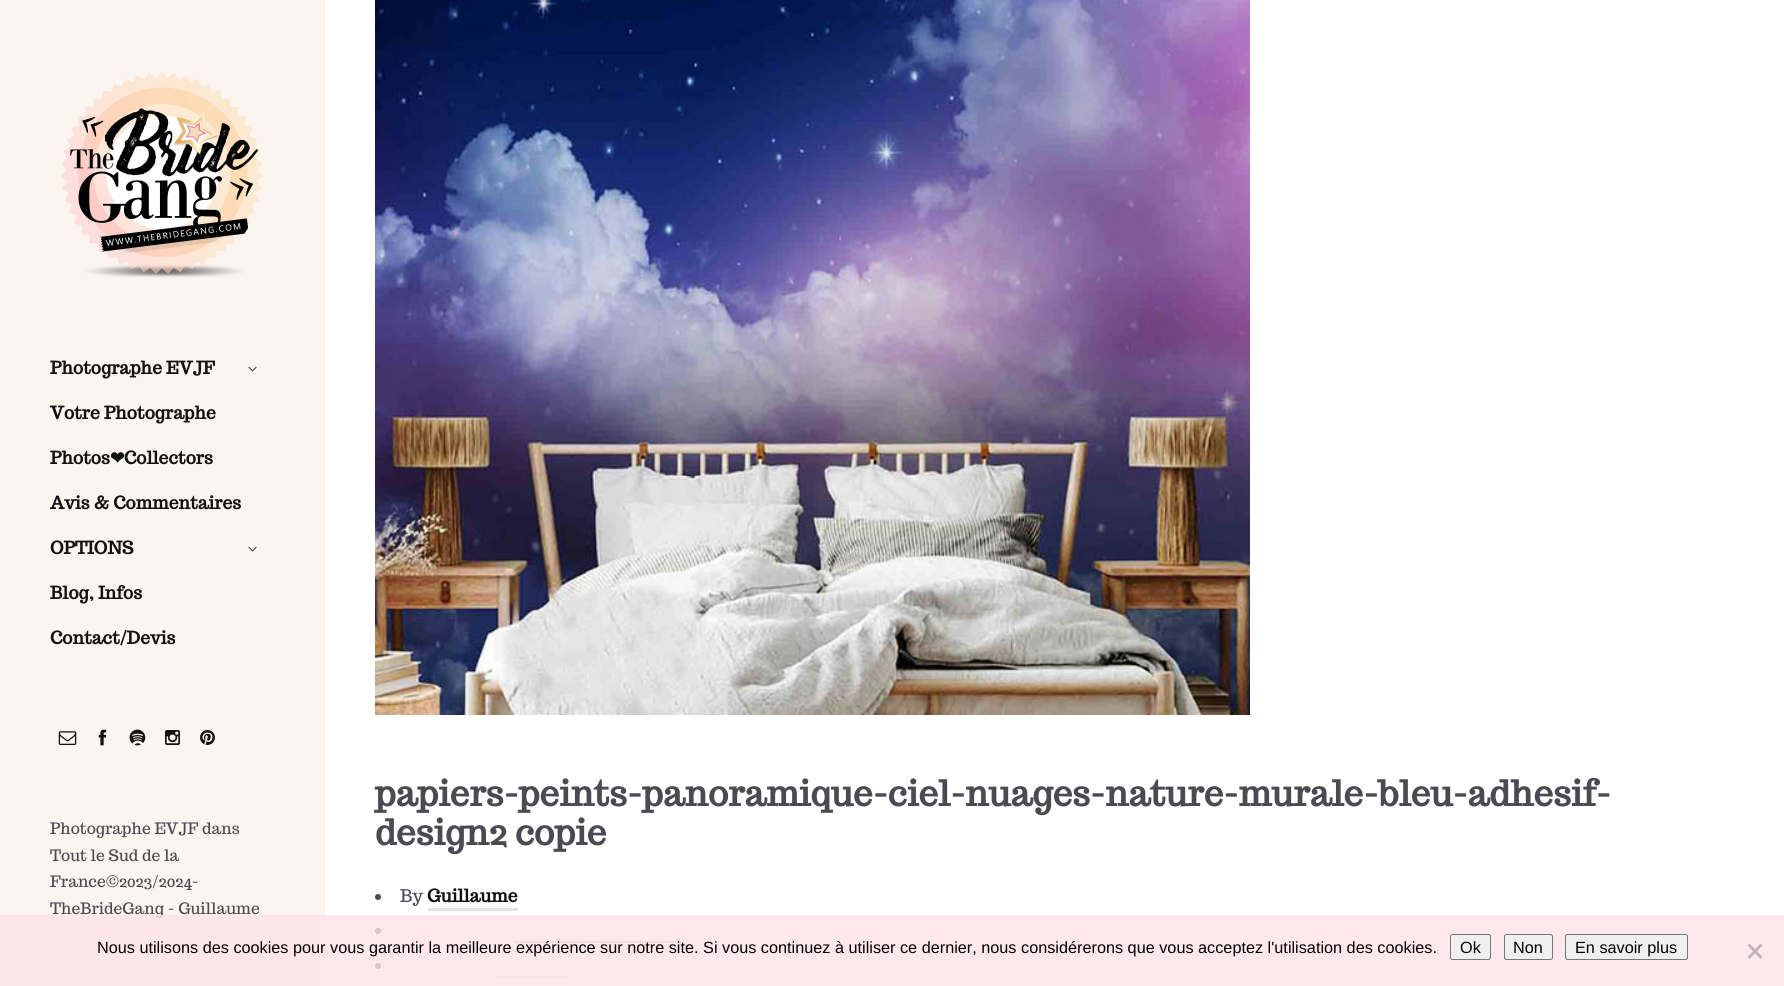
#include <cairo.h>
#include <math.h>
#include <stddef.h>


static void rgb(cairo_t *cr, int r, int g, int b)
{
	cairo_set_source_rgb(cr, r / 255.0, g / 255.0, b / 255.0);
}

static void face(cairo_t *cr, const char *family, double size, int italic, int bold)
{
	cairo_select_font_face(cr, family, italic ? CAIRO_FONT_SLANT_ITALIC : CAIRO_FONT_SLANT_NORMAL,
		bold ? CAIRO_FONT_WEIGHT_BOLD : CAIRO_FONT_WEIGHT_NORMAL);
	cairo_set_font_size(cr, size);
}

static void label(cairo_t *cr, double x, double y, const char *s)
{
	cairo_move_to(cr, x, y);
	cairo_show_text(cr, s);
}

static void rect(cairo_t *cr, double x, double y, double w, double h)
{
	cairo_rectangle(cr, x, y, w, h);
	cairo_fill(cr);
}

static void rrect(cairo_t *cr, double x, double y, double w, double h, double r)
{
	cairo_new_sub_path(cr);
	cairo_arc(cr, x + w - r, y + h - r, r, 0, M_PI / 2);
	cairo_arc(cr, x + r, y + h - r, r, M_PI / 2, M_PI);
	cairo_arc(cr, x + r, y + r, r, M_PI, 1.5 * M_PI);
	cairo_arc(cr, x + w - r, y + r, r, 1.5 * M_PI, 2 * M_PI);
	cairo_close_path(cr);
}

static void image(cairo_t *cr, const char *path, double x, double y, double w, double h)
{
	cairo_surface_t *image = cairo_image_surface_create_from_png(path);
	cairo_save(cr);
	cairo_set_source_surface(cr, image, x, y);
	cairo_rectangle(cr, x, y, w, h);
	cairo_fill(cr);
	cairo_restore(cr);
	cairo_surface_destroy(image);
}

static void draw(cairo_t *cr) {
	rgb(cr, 255, 255, 255);
	cairo_paint(cr);
	rgb(cr, 252, 244, 239);
	rect(cr, 0, 0, 325, 986);
	image(cr, "image0.png", 61, 72, 202, 206);
	face(cr, "Trocchi", 17.5, 0, 1);
	rgb(cr, 17, 17, 17);
	label(cr, 50, 374, "Photographe EVJF");
	image(cr, "image1.png", 248, 366, 9, 6);
	label(cr, 50, 419, "Votre Photographe");
	label(cr, 50, 464, "Photos");
	face(cr, "DejaVu Sans", 17.5, 0, 1);
	label(cr, 110, 464, "❤");
	face(cr, "Trocchi", 17.5, 0, 1);
	label(cr, 124, 464, "Collectors");
	label(cr, 50, 509, "Avis & Commentaires");
	label(cr, 50, 554, "OPTIONS");
	image(cr, "image1.png", 248, 546, 9, 6);
	label(cr, 50, 599, "Blog, Infos");
	label(cr, 50, 644, "Contact/Devis");
	image(cr, "image2.png", 58, 731, 19, 14);
	image(cr, "image3.png", 98, 729, 9, 17);
	image(cr, "image4.png", 129, 729, 17, 17);
	image(cr, "image5.png", 165, 730, 15, 15);
	image(cr, "image6.png", 200, 730, 15, 15);
	face(cr, "Trocchi", 15.75, 0, 0);
	rgb(cr, 73, 74, 82);
	label(cr, 50, 834, "Photographe EVJF dans");
	label(cr, 50, 861, "Tout le Sud de la");
	label(cr, 50, 887, "France©2023/2024-");
	label(cr, 50, 914, "TheBrideGang - Guillaume");
	image(cr, "image7.png", 375, 0, 875, 715);
	face(cr, "Trocchi", 35, 0, 1);
	label(cr, 375, 806, "papiers-peints-panoramique-ciel-nuages-nature-murale-bleu-adhesif-");
	label(cr, 375, 845, "design2 copie");
	cairo_new_path(cr);
	cairo_arc(cr, 378, 897, 3, 0, 2 * M_PI);
	cairo_fill(cr);
	face(cr, "Trocchi", 17.5, 0, 0);
	label(cr, 400, 902, "By");
	face(cr, "Trocchi", 17.5, 0, 1);
	rgb(cr, 17, 17, 17);
	label(cr, 427, 902, "Guillaume");
	rgb(cr, 224, 227, 229);
	rect(cr, 428, 908, 90, 3);
	rgb(cr, 73, 74, 82);
	cairo_new_path(cr);
	cairo_arc(cr, 378, 931, 3, 0, 2 * M_PI);
	cairo_fill(cr);
	cairo_new_path(cr);
	cairo_move_to(cr, 515, 942);
	cairo_line_to(cr, 681, 942);
	cairo_set_line_width(cr, 1.2);
	cairo_set_dash(cr, (double[]){1.25, 1.25}, 2, 0);
	cairo_stroke(cr);
	cairo_arc(cr, 378, 966, 3, 0, 2 * M_PI);
	cairo_fill(cr);
	rgb(cr, 224, 227, 229);
	rect(cr, 496, 976, 73, 3);
	cairo_set_source_rgba(cr, 1, 0.886, 0.914, 0.79);
	rect(cr, 0, 915, 1784, 71);
	face(cr, "Liberation Sans", 16.25, 0, 0);
	rgb(cr, 0, 0, 0);
	label(cr, 97, 953, "Nous utilisons des cookies pour vous garantir la meilleure expérience sur notre site. Si vous continuez à utiliser ce dernier, nous considérerons que vous acceptez l'utilisation des cookies.");
	rgb(cr, 239, 239, 239);
	rrect(cr, 1450.5, 934.5, 40, 25, 2);
	cairo_fill_preserve(cr);
	rgb(cr, 118, 118, 118);
	cairo_set_line_width(cr, 1);
	cairo_set_dash(cr, NULL, 0, 0);
	cairo_stroke(cr);
	rgb(cr, 0, 0, 0);
	label(cr, 1460, 953, "Ok");
	rgb(cr, 239, 239, 239);
	rrect(cr, 1504.5, 934.5, 48, 25, 2);
	cairo_fill_preserve(cr);
	rgb(cr, 118, 118, 118);
	cairo_stroke(cr);
	rgb(cr, 0, 0, 0);
	label(cr, 1513, 953, "Non");
	rgb(cr, 239, 239, 239);
	rrect(cr, 1565.5, 934.5, 122, 25, 2);
	cairo_fill_preserve(cr);
	rgb(cr, 118, 118, 118);
	cairo_stroke(cr);
	rgb(cr, 0, 0, 0);
	label(cr, 1575, 953, "En savoir plus");
	rgb(cr, 191, 180, 183);
	cairo_new_path(cr);
	cairo_move_to(cr, 1760.5, 943.5);
	cairo_line_to(cr, 1762.5, 945.5);
	cairo_line_to(cr, 1749.5, 959);
	cairo_line_to(cr, 1747.5, 957);
	cairo_close_path(cr);
	cairo_fill(cr);
	cairo_new_path(cr);
	cairo_move_to(cr, 1747.5, 945.5);
	cairo_line_to(cr, 1749.5, 943.5);
	cairo_line_to(cr, 1762.5, 957);
	cairo_line_to(cr, 1760.5, 959);
	cairo_close_path(cr);
	cairo_fill(cr);
}

int main(void) {
	cairo_surface_t *surface = cairo_image_surface_create(CAIRO_FORMAT_RGB24, 1784, 986);
	cairo_t *cr = cairo_create(surface);
	cairo_font_options_t *options = cairo_font_options_create();
	cairo_font_options_set_hint_metrics(options, CAIRO_HINT_METRICS_OFF);
	cairo_font_options_set_hint_style(options, CAIRO_HINT_STYLE_NONE);
	cairo_set_font_options(cr, options);
	cairo_set_miter_limit(cr, 4);
	draw(cr);
	cairo_surface_write_to_png(surface, "render.png");
	cairo_font_options_destroy(options);
	cairo_destroy(cr);
	cairo_surface_destroy(surface);
	return 0;
}
